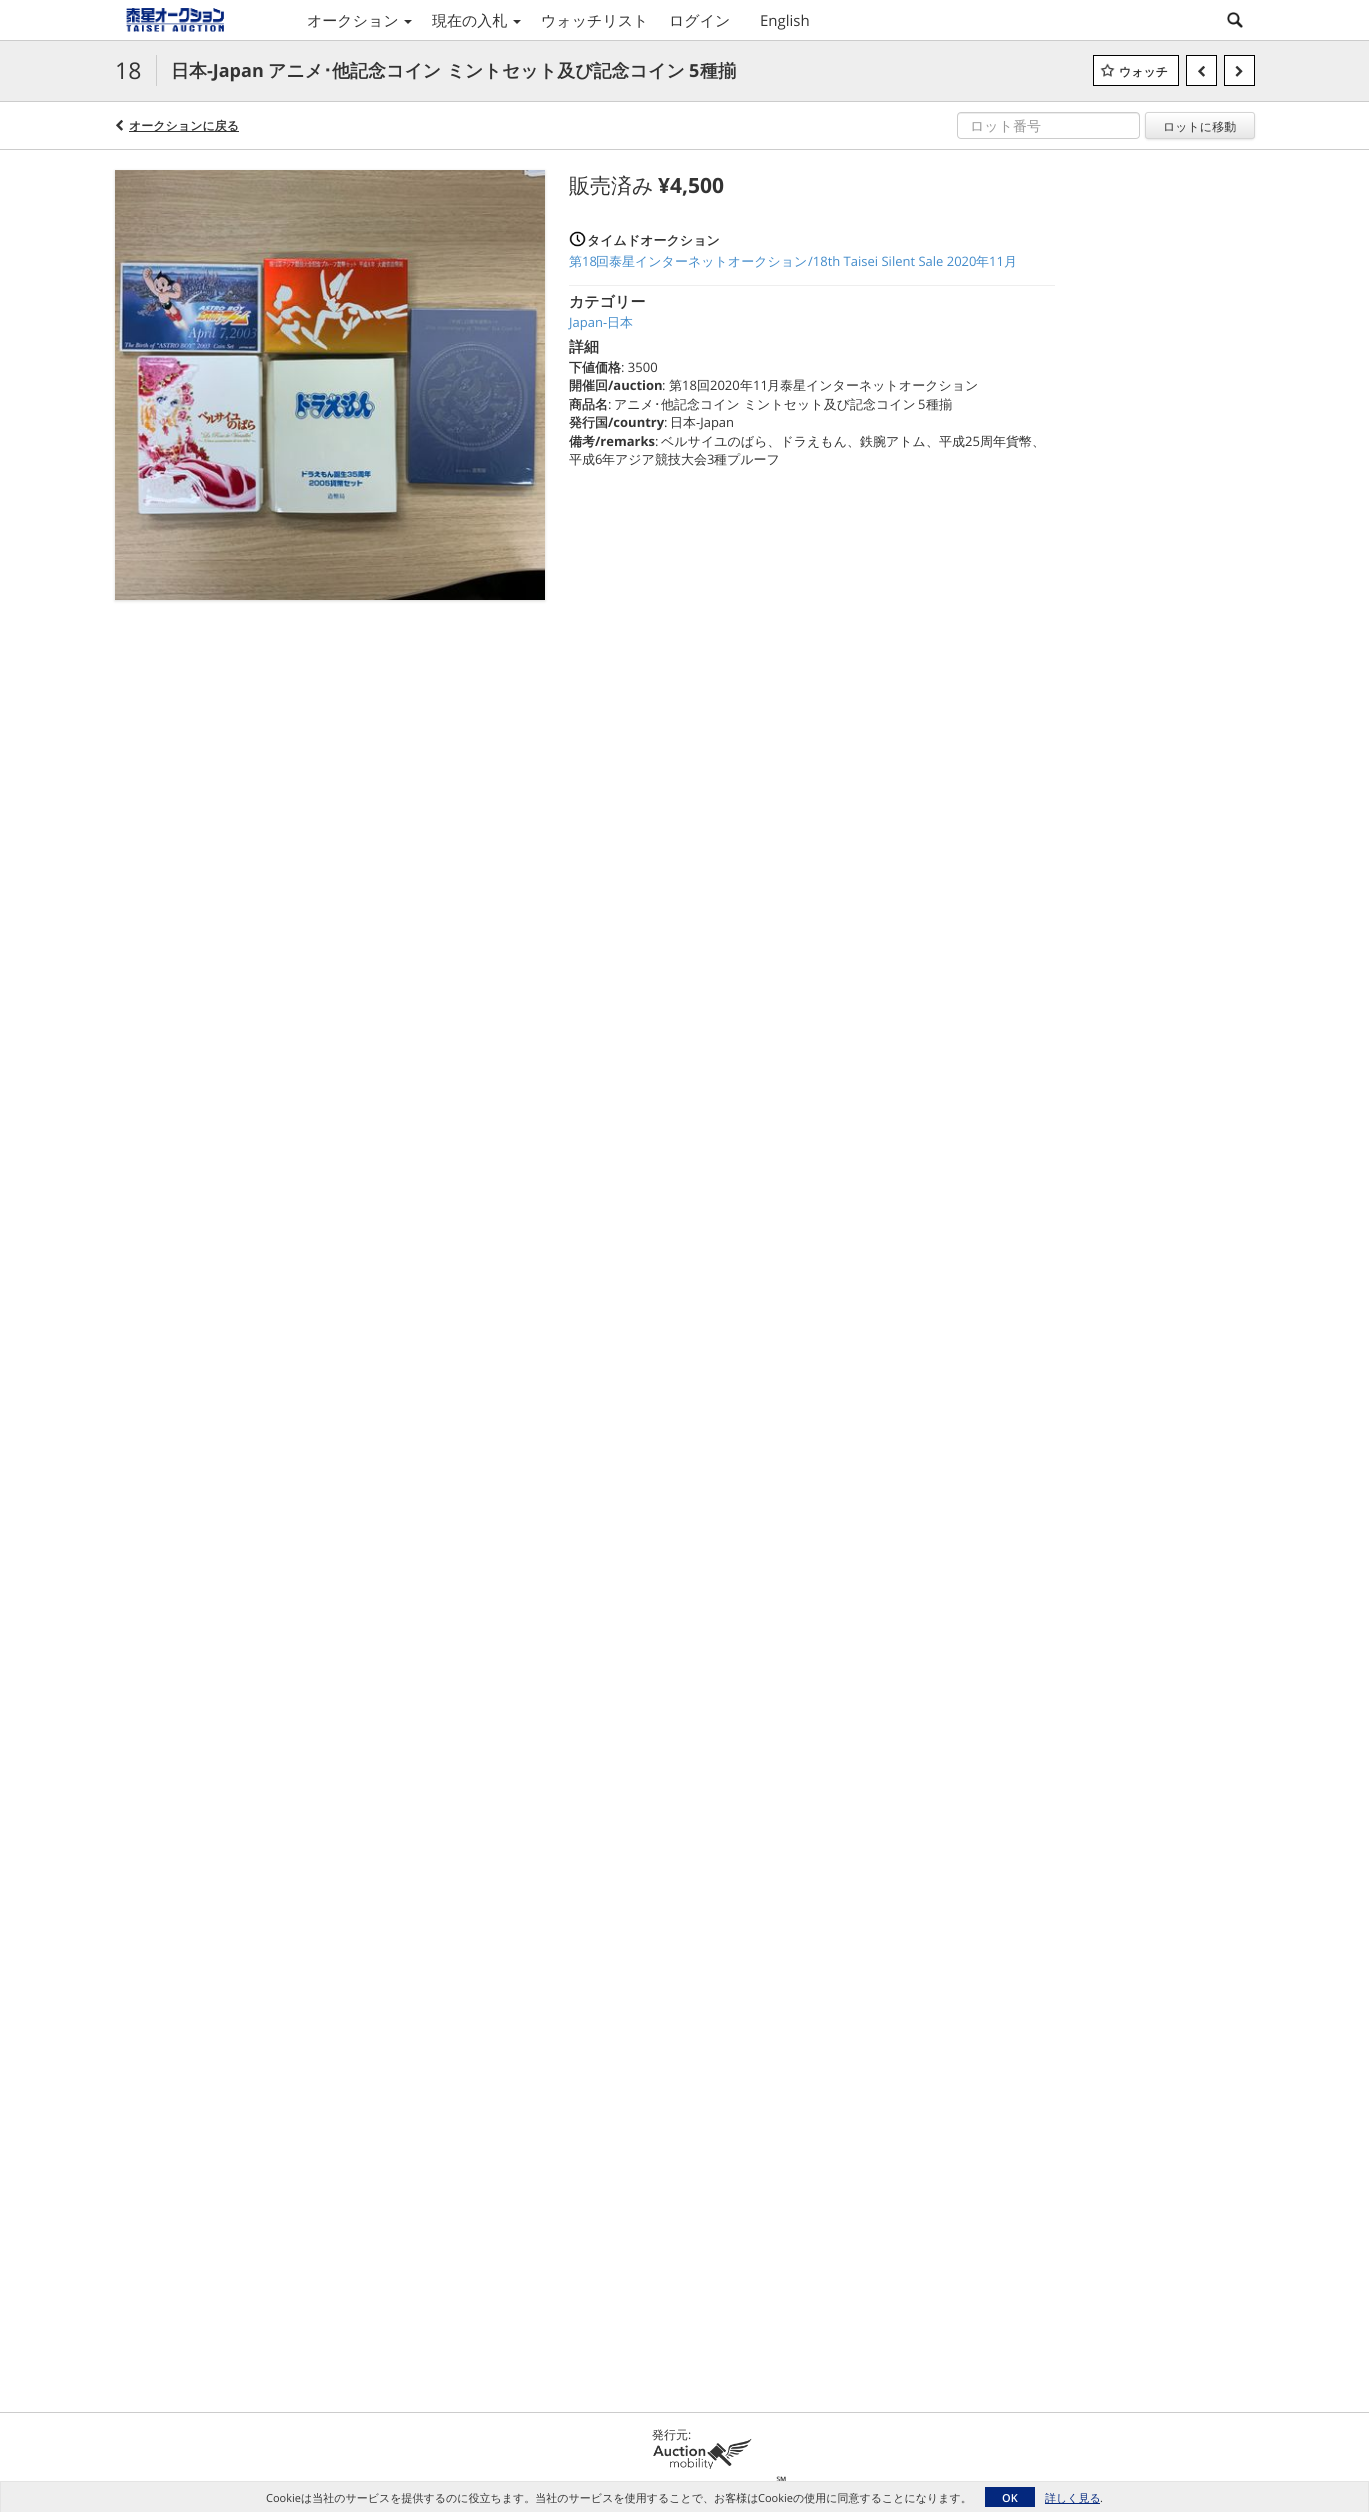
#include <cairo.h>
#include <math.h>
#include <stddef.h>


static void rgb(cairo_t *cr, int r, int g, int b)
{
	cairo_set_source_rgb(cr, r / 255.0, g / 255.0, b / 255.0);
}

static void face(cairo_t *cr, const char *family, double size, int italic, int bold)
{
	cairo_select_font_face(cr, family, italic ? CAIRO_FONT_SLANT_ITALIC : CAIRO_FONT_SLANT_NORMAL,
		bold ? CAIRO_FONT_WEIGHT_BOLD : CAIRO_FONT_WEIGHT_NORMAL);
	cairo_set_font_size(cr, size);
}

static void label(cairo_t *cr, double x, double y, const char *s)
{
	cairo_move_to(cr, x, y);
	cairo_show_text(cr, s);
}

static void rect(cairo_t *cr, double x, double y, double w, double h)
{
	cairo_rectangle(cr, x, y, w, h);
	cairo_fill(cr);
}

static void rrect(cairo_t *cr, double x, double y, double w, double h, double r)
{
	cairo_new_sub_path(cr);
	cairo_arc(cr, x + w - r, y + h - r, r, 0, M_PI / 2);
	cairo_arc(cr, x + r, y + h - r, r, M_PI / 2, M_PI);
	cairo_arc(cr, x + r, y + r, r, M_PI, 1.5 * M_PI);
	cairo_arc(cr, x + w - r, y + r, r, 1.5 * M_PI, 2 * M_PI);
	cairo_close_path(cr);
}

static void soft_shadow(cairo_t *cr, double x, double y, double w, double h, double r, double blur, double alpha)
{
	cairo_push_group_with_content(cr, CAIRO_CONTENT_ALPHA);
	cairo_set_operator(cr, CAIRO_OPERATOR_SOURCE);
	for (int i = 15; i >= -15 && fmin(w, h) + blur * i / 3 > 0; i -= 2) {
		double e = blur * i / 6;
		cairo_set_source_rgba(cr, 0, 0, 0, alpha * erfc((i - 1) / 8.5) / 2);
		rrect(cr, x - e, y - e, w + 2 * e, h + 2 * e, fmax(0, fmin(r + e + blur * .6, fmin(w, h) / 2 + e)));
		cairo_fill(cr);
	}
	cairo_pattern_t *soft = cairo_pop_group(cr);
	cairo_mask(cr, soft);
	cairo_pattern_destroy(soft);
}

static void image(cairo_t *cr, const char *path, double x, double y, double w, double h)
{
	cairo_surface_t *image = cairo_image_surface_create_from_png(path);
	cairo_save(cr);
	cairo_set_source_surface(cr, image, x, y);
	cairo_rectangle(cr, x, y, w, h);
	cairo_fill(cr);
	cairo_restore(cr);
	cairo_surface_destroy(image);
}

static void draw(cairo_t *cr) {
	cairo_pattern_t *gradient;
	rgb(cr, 255, 255, 255);
	cairo_paint(cr);
	image(cr, "image0.png", 126, 8, 98, 24);
	face(cr, "WenQuanYi Zen Hei Medium", 15, 0, 0);
	rgb(cr, 51, 51, 51);
	label(cr, 307, 26, "オークション");
	cairo_new_path(cr);
	cairo_move_to(cr, 404, 20);
	cairo_line_to(cr, 412, 20);
	cairo_line_to(cr, 408, 24);
	cairo_close_path(cr);
	cairo_fill(cr);
	label(cr, 432, 26, "現在の入札");
	cairo_new_path(cr);
	cairo_move_to(cr, 513, 20);
	cairo_line_to(cr, 521, 20);
	cairo_line_to(cr, 517, 24);
	cairo_close_path(cr);
	cairo_fill(cr);
	label(cr, 541, 26, "ウォッチリスト");
	label(cr, 669, 26, "ログイン");
	face(cr, "Open Sans", 15, 0, 0);
	label(cr, 760, 26, "English");
	image(cr, "image1.png", 1227, 12, 16, 16);
	rgb(cr, 204, 204, 204);
	rect(cr, 0, 40, 1369, 1);
	rgb(cr, 238, 238, 238);
	rect(cr, 0, 41, 1369, 60);
	rgb(cr, 204, 204, 204);
	rect(cr, 0, 101, 1369, 1);
	face(cr, "Open Sans", 23, 0, 0);
	rgb(cr, 51, 51, 51);
	label(cr, 115, 79, "18");
	rgb(cr, 204, 204, 204);
	rect(cr, 156, 55, 1, 31);
	face(cr, "WenQuanYi Zen Hei", 18, 0, 1);
	rgb(cr, 51, 51, 51);
	label(cr, 171, 77, "日本");
	face(cr, "Open Sans", 18, 0, 1);
	label(cr, 207, 77, "-Japan");
	face(cr, "WenQuanYi Zen Hei", 18, 0, 1);
	label(cr, 268, 77, "アニメ");
	face(cr, "IPAPGothic", 18, 0, 1);
	label(cr, 323, 77, "･");
	face(cr, "WenQuanYi Zen Hei", 18, 0, 1);
	label(cr, 332, 77, "他記念コイン ミントセット及び記念コイン");
	face(cr, "Open Sans", 18, 0, 1);
	label(cr, 689, 77, "5");
	face(cr, "WenQuanYi Zen Hei", 18, 0, 1);
	label(cr, 700, 77, "種揃");
	rgb(cr, 255, 255, 255);
	cairo_rectangle(cr, 1093.5, 55.5, 85, 30);
	cairo_fill_preserve(cr);
	rgb(cr, 0, 0, 0);
	cairo_set_line_width(cr, 1);
	cairo_stroke(cr);
	image(cr, "image2.png", 1100, 63, 15, 14);
	face(cr, "WenQuanYi Zen Hei", 12, 0, 1);
	rgb(cr, 51, 51, 51);
	label(cr, 1119, 76, "ウォッチ");
	rgb(cr, 255, 255, 255);
	cairo_rectangle(cr, 1186.5, 55.5, 30, 30);
	cairo_fill_preserve(cr);
	rgb(cr, 0, 0, 0);
	cairo_stroke(cr);
	image(cr, "image3.png", 1198, 65, 7, 12);
	rgb(cr, 255, 255, 255);
	cairo_rectangle(cr, 1224.5, 55.5, 30, 30);
	cairo_fill_preserve(cr);
	rgb(cr, 0, 0, 0);
	cairo_stroke(cr);
	image(cr, "image4.png", 1235, 65, 8, 12);
	image(cr, "image3.png", 116, 119, 7, 12);
	rgb(cr, 51, 51, 51);
	rect(cr, 129, 131, 110, 1);
	label(cr, 129, 130, "オークションに戻る");
	rgb(cr, 236, 236, 236);
	cairo_new_path(cr);
	cairo_move_to(cr, 961, 114);
	cairo_line_to(cr, 1137, 114);
	cairo_line_to(cr, 1138, 115);
	cairo_line_to(cr, 1139, 117);
	cairo_line_to(cr, 1139, 116);
	cairo_curve_to(cr, 1139, 114, 1138, 113, 1136, 113);
	cairo_line_to(cr, 961, 113);
	cairo_curve_to(cr, 959, 113, 958, 114, 958, 116);
	cairo_line_to(cr, 958, 117);
	cairo_curve_to(cr, 958, 115, 959, 114, 961, 114);
	cairo_close_path(cr);
	cairo_fill(cr);
	rrect(cr, 957.5, 112.5, 182, 26, 3.5);
	rgb(cr, 204, 204, 204);
	cairo_stroke(cr);
	face(cr, "WenQuanYi Zen Hei Medium", 14, 0, 0);
	rgb(cr, 153, 153, 153);
	label(cr, 970, 131, "ロット番号");
	rgb(cr, 0, 0, 0);
	soft_shadow(cr, 1146, 114, 108, 25, 2, 1.5, 0.2);
	cairo_save(cr);
	rrect(cr, 1145, 112, 110, 27, 3);
	cairo_clip(cr);
	gradient = cairo_pattern_create_linear(1200, 113, 1200, 138);
	cairo_pattern_add_color_stop_rgba(gradient, 0, 1, 1, 1, 1);
	cairo_pattern_add_color_stop_rgba(gradient, 1, 0.902, 0.902, 0.902, 1);
	cairo_set_source(cr, gradient);
	cairo_pattern_destroy(gradient);
	rect(cr, 1145, 113, 110, 25);
	cairo_restore(cr);
	rrect(cr, 1145.5, 112.5, 109, 26, 2.5);
	rgb(cr, 212, 212, 212);
	cairo_stroke(cr);
	face(cr, "WenQuanYi Zen Hei Medium", 12, 0, 0);
	rgb(cr, 51, 51, 51);
	label(cr, 1163, 131, "ロットに移動");
	rgb(cr, 204, 204, 204);
	rect(cr, 0, 149, 1369, 1);
	rgb(cr, 218, 217, 215);
	soft_shadow(cr, 115, 171, 430, 430, 0, 1.5, 1);
	image(cr, "image5.png", 115, 170, 430, 430);
	face(cr, "WenQuanYi Zen Hei Medium", 21, 0, 0);
	rgb(cr, 51, 51, 51);
	label(cr, 569, 193, "販売済み");
	face(cr, "Open Sans", 21, 0, 1);
	label(cr, 658, 193, "¥4,500");
	image(cr, "image6.png", 569, 231, 17, 16);
	face(cr, "WenQuanYi Zen Hei", 13, 0, 1);
	label(cr, 587, 245, "タイムドオークション");
	face(cr, "WenQuanYi Zen Hei Medium", 13, 0, 0);
	rgb(cr, 66, 139, 202);
	label(cr, 569, 266, "第");
	face(cr, "Open Sans", 13, 0, 0);
	label(cr, 582, 266, "18");
	face(cr, "WenQuanYi Zen Hei Medium", 13, 0, 0);
	label(cr, 596, 266, "回泰星インターネットオークション");
	face(cr, "Open Sans", 13, 0, 0);
	label(cr, 808, 266, "/18th Taisei Silent Sale 2020");
	face(cr, "WenQuanYi Zen Hei Medium", 13, 0, 0);
	label(cr, 976, 266, "年");
	face(cr, "Open Sans", 13, 0, 0);
	label(cr, 989, 266, "11");
	face(cr, "WenQuanYi Zen Hei Medium", 13, 0, 0);
	label(cr, 1004, 266, "月");
	rgb(cr, 238, 238, 238);
	rect(cr, 569, 285, 486, 1);
	face(cr, "WenQuanYi Zen Hei", 15, 0, 1);
	rgb(cr, 51, 51, 51);
	label(cr, 569, 307, "カテゴリー");
	face(cr, "Open Sans", 13, 0, 0);
	rgb(cr, 66, 139, 202);
	label(cr, 569, 327, "Japan-");
	face(cr, "WenQuanYi Zen Hei Medium", 13, 0, 0);
	label(cr, 607, 327, "日本");
	face(cr, "WenQuanYi Zen Hei", 15, 0, 1);
	rgb(cr, 51, 51, 51);
	label(cr, 569, 352, "詳細");
	face(cr, "WenQuanYi Zen Hei", 13, 0, 1);
	label(cr, 569, 372, "下値価格");
	face(cr, "Open Sans", 13, 0, 0);
	label(cr, 621, 372, ": 3500");
	face(cr, "WenQuanYi Zen Hei", 13, 0, 1);
	label(cr, 569, 390, "開催回");
	face(cr, "Open Sans", 13, 0, 1);
	label(cr, 608, 390, "/auction");
	face(cr, "Open Sans", 13, 0, 0);
	label(cr, 662, 390, ":");
	face(cr, "WenQuanYi Zen Hei Medium", 13, 0, 0);
	label(cr, 669, 390, "第");
	face(cr, "Open Sans", 13, 0, 0);
	label(cr, 682, 390, "18");
	face(cr, "WenQuanYi Zen Hei Medium", 13, 0, 0);
	label(cr, 697, 390, "回");
	face(cr, "Open Sans", 13, 0, 0);
	label(cr, 710, 390, "2020");
	face(cr, "WenQuanYi Zen Hei Medium", 13, 0, 0);
	label(cr, 740, 390, "年");
	face(cr, "Open Sans", 13, 0, 0);
	label(cr, 753, 390, "11");
	face(cr, "WenQuanYi Zen Hei Medium", 13, 0, 0);
	label(cr, 767, 390, "月泰星インターネットオークション");
	face(cr, "WenQuanYi Zen Hei", 13, 0, 1);
	label(cr, 569, 409, "商品名");
	face(cr, "Open Sans", 13, 0, 0);
	label(cr, 608, 409, ":");
	face(cr, "WenQuanYi Zen Hei Medium", 13, 0, 0);
	label(cr, 614, 409, "アニメ");
	face(cr, "IPAPGothic", 13, 0, 0);
	label(cr, 654, 409, "･");
	face(cr, "WenQuanYi Zen Hei Medium", 13, 0, 0);
	label(cr, 661, 409, "他記念コイン ミントセット及び記念コイン");
	face(cr, "Open Sans", 13, 0, 0);
	label(cr, 918, 409, "5");
	face(cr, "WenQuanYi Zen Hei Medium", 13, 0, 0);
	label(cr, 926, 409, "種揃");
	face(cr, "WenQuanYi Zen Hei", 13, 0, 1);
	label(cr, 569, 427, "発行国");
	face(cr, "Open Sans", 13, 0, 1);
	label(cr, 608, 427, "/country");
	face(cr, "Open Sans", 13, 0, 0);
	label(cr, 664, 427, ":");
	face(cr, "WenQuanYi Zen Hei Medium", 13, 0, 0);
	label(cr, 670, 427, "日本");
	face(cr, "Open Sans", 13, 0, 0);
	label(cr, 696, 427, "-Japan");
	face(cr, "WenQuanYi Zen Hei", 13, 0, 1);
	label(cr, 569, 446, "備考");
	face(cr, "Open Sans", 13, 0, 1);
	label(cr, 595, 446, "/remarks");
	face(cr, "Open Sans", 13, 0, 0);
	label(cr, 655, 446, ":");
	face(cr, "WenQuanYi Zen Hei Medium", 13, 0, 0);
	label(cr, 661, 446, "ベルサイユのばら、ドラえもん、鉄腕アトム、平成");
	face(cr, "Open Sans", 13, 0, 0);
	label(cr, 965, 446, "25");
	face(cr, "WenQuanYi Zen Hei Medium", 13, 0, 0);
	label(cr, 980, 446, "周年貨幣、");
	label(cr, 569, 464, "平成");
	face(cr, "Open Sans", 13, 0, 0);
	label(cr, 595, 464, "6");
	face(cr, "WenQuanYi Zen Hei Medium", 13, 0, 0);
	label(cr, 602, 464, "年アジア競技大会");
	face(cr, "Open Sans", 13, 0, 0);
	label(cr, 707, 464, "3");
	face(cr, "WenQuanYi Zen Hei Medium", 13, 0, 0);
	label(cr, 714, 464, "種プルーフ");
	rgb(cr, 204, 204, 204);
	rect(cr, 0, 2412, 1369, 1);
	face(cr, "WenQuanYi Zen Hei Medium", 12, 0, 0);
	rgb(cr, 51, 51, 51);
	label(cr, 652, 2439, "発行元");
	face(cr, "Open Sans", 12, 0, 0);
	label(cr, 688, 2439, ":");
	image(cr, "image7.png", 653, 2438, 99, 31);
	face(cr, "Noto Sans", 13, 0, 0);
	label(cr, 776, 2486, "℠");
	rgb(cr, 238, 238, 238);
	rect(cr, 1, 2482, 1367, 30);
	rgb(cr, 228, 228, 228);
	rect(cr, 0, 2481, 1369, 1);
	rect(cr, 1368, 2481, 1, 31);
	rect(cr, 0, 2481, 1, 31);
	face(cr, "Open Sans", 11, 0, 0);
	rgb(cr, 51, 51, 51);
	label(cr, 266, 2502, "Cookie");
	face(cr, "WenQuanYi Zen Hei Medium", 11, 0, 0);
	label(cr, 301, 2502, "は当社のサービスを提供するのに役立ちます。当社のサービスを使用することで、お客様は");
	face(cr, "Open Sans", 11, 0, 0);
	label(cr, 758, 2502, "Cookie");
	face(cr, "WenQuanYi Zen Hei Medium", 11, 0, 0);
	label(cr, 793, 2502, "の使用に同意することになります。");
	rgb(cr, 4, 40, 126);
	rect(cr, 985, 2487, 50, 20);
	face(cr, "Open Sans SemiBold", 11, 0, 0);
	rgb(cr, 255, 255, 255);
	label(cr, 1002, 2502, "OK");
	rgb(cr, 4, 40, 126);
	rect(cr, 1045, 2503, 55, 1);
	face(cr, "WenQuanYi Zen Hei Medium", 11, 0, 0);
	label(cr, 1045, 2502, "詳しく見る");
	face(cr, "Open Sans", 11, 0, 0);
	rgb(cr, 51, 51, 51);
	label(cr, 1100, 2502, ".");
}

int main(void) {
	cairo_surface_t *surface = cairo_image_surface_create(CAIRO_FORMAT_RGB24, 1369, 2512);
	cairo_t *cr = cairo_create(surface);
	cairo_font_options_t *options = cairo_font_options_create();
	cairo_font_options_set_hint_metrics(options, CAIRO_HINT_METRICS_OFF);
	cairo_font_options_set_hint_style(options, CAIRO_HINT_STYLE_NONE);
	cairo_set_font_options(cr, options);
	cairo_set_miter_limit(cr, 4);
	draw(cr);
	cairo_surface_write_to_png(surface, "render.png");
	cairo_font_options_destroy(options);
	cairo_destroy(cr);
	cairo_surface_destroy(surface);
	return 0;
}
